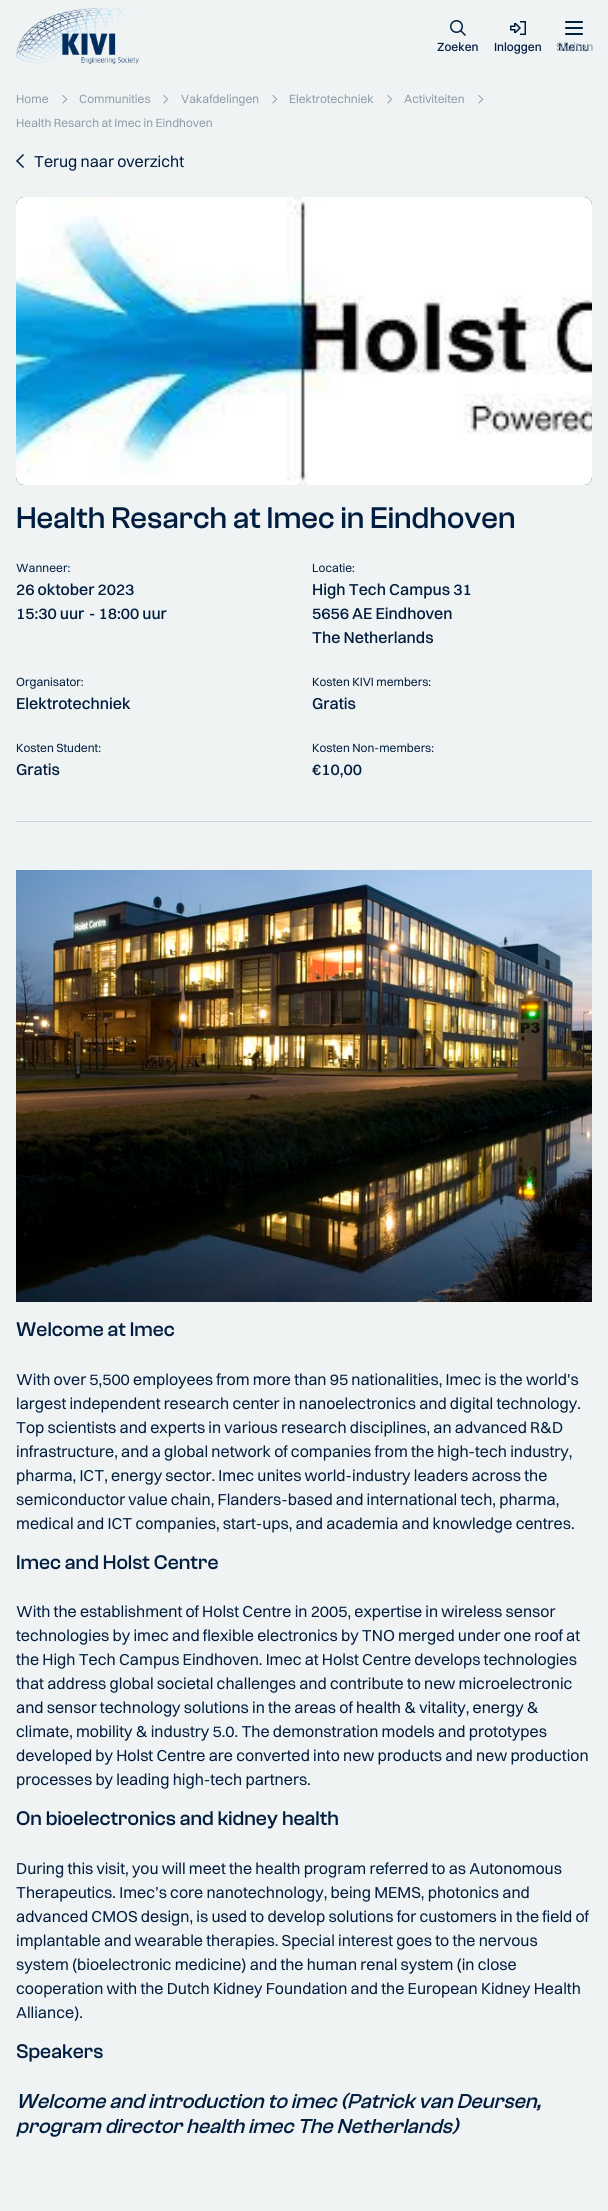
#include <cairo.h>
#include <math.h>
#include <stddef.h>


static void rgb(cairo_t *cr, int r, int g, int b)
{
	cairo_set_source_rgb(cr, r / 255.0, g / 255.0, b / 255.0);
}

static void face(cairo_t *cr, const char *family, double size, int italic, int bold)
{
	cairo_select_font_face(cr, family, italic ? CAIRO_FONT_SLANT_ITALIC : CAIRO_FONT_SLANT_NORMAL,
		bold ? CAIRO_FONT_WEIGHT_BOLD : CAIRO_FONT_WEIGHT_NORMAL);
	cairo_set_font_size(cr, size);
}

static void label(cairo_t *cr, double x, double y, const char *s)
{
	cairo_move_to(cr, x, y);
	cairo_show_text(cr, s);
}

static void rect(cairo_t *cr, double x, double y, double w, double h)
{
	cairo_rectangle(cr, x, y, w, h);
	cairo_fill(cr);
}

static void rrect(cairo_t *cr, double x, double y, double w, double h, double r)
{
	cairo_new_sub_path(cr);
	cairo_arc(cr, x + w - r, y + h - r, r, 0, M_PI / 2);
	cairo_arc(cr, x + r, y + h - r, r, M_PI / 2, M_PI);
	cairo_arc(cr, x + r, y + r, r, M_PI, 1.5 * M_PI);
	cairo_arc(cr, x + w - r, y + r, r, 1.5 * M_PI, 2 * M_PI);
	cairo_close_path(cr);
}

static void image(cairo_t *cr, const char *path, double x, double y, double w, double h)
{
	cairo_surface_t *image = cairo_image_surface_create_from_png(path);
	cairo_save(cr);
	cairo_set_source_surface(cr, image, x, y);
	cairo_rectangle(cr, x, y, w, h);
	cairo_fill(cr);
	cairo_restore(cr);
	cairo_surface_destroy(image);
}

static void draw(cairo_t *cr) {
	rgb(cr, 240, 243, 243);
	cairo_paint(cr);
	image(cr, "image0.png", 16, 8, 123, 56);
	image(cr, "image1.png", 450, 20, 16, 16);
	face(cr, "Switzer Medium", 12, 0, 0);
	rgb(cr, 1, 30, 65);
	label(cr, 437, 51, "Zoeken");
	image(cr, "image2.png", 510, 21, 16, 14);
	label(cr, 494, 51, "Inloggen");
	rrect(cr, 565, 27, 18, 2, 1);
	cairo_fill(cr);
	rrect(cr, 565, 21, 18, 2, 1);
	cairo_fill(cr);
	rrect(cr, 565, 33, 18, 2, 1);
	cairo_fill(cr);
	label(cr, 558, 51, "Menu");
	rgb(cr, 156, 168, 181);
	label(cr, 556, 51, "Sluiten");
	face(cr, "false", 12, 0, 0);
	rgb(cr, 142, 156, 170);
	label(cr, 16, 103, "Home");
	image(cr, "image3.png", 62, 95, 6, 9);
	label(cr, 79, 103, "Communities");
	image(cr, "image3.png", 163, 95, 6, 9);
	label(cr, 181, 103, "Vakafdelingen");
	image(cr, "image3.png", 272, 95, 6, 9);
	label(cr, 289, 103, "Elektrotechniek");
	image(cr, "image3.png", 387, 95, 6, 9);
	label(cr, 404, 103, "Activiteiten");
	image(cr, "image3.png", 478, 95, 6, 9);
	label(cr, 16, 127, "Health Resarch at Imec in Eindhoven");
	image(cr, "image4.png", 16, 154, 8, 14);
	face(cr, "false", 16, 0, 0);
	rgb(cr, 1, 30, 65);
	label(cr, 34, 167, "Terug naar overzicht");
	rrect(cr, 16, 197, 576, 288, 8);
	cairo_fill(cr);
	image(cr, "image5.png", 16, 197, 576, 288);
	face(cr, "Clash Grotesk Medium", 31, 0, 0);
	label(cr, 16, 528, "Health Resarch at Imec in Eindhoven");
	face(cr, "false", 12, 0, 0);
	label(cr, 16, 572, "Wanneer:");
	face(cr, "Switzer Medium", 16, 0, 0);
	label(cr, 16, 595, "26 oktober 2023");
	label(cr, 16, 619, "15:30 uur");
	label(cr, 89, 619, "- 18:00 uur");
	face(cr, "false", 12, 0, 0);
	label(cr, 312, 572, "Locatie:");
	face(cr, "Switzer Medium", 16, 0, 0);
	label(cr, 312, 595, "High Tech Campus 31");
	label(cr, 312, 619, "5656 AE Eindhoven");
	label(cr, 312, 643, "The Netherlands");
	face(cr, "false", 12, 0, 0);
	label(cr, 16, 686, "Organisator:");
	face(cr, "Switzer Medium", 16, 0, 0);
	label(cr, 16, 709, "Elektrotechniek");
	face(cr, "false", 12, 0, 0);
	label(cr, 312, 686, "Kosten KIVI members:");
	face(cr, "Switzer Medium", 16, 0, 0);
	label(cr, 312, 709, "Gratis");
	face(cr, "false", 12, 0, 0);
	label(cr, 16, 752, "Kosten Student:");
	face(cr, "Switzer Medium", 16, 0, 0);
	label(cr, 16, 775, "Gratis");
	face(cr, "false", 12, 0, 0);
	label(cr, 312, 752, "Kosten Non-members:");
	face(cr, "Switzer Medium", 16, 0, 0);
	label(cr, 312, 775, "€10,00");
	rgb(cr, 202, 209, 215);
	rect(cr, 16, 821, 576, 1);
	image(cr, "image6.png", 16, 870, 576, 432);
	face(cr, "Clash Grotesk Medium", 20.5, 0, 0);
	rgb(cr, 1, 30, 65);
	label(cr, 16, 1336, "Welcome at Imec");
	face(cr, "false", 16, 0, 0);
	label(cr, 16, 1385, "With over 5,500 employees from more than 95 nationalities, Imec is the world's");
	label(cr, 16, 1409, "largest independent research center in nanoelectronics and digital technology.");
	label(cr, 16, 1433, "Top scientists and experts in various research disciplines, an advanced R&D");
	label(cr, 16, 1457, "infrastructure, and a global network of companies from the high-tech industry,");
	label(cr, 16, 1481, "pharma, ICT, energy sector. Imec unites world-industry leaders across the");
	label(cr, 16, 1505, "semiconductor value chain, Flanders-based and international tech, pharma,");
	label(cr, 16, 1529, "medical and ICT companies, start-ups, and academia and knowledge centres.");
	face(cr, "Clash Grotesk Medium", 20.5, 0, 0);
	label(cr, 16, 1569, "Imec and Holst Centre");
	face(cr, "false", 16, 0, 0);
	label(cr, 16, 1617, "With the establishment of Holst Centre in 2005, expertise in wireless sensor");
	label(cr, 16, 1641, "technologies by imec and flexible electronics by TNO merged under one roof at");
	label(cr, 16, 1665, "the High Tech Campus Eindhoven. Imec at Holst Centre develops technologies");
	label(cr, 16, 1689, "that address global societal challenges and contribute to new microelectronic");
	label(cr, 16, 1713, "and sensor technology solutions in the areas of health & vitality, energy &");
	label(cr, 16, 1737, "climate, mobility & industry 5.0. The demonstration models and prototypes");
	label(cr, 16, 1761, "developed by Holst Centre are converted into new products and new production");
	label(cr, 16, 1785, "processes by leading high-tech partners.");
	face(cr, "Clash Grotesk Medium", 20.5, 0, 0);
	label(cr, 16, 1825, "On bioelectronics and kidney health");
	face(cr, "false", 16, 0, 0);
	label(cr, 16, 1874, "During this visit, you will meet the health program referred to as Autonomous");
	label(cr, 16, 1898, "Therapeutics. Imec’s core nanotechnology, being MEMS, photonics and");
	label(cr, 16, 1922, "advanced CMOS design, is used to develop solutions for customers in the field of");
	label(cr, 16, 1946, "implantable and wearable therapies. Special interest goes to the nervous");
	label(cr, 16, 1970, "system (bioelectronic medicine) and the human renal system (in close");
	label(cr, 16, 1994, "cooperation with the Dutch Kidney Foundation and the European Kidney Health");
	label(cr, 16, 2018, "Alliance).");
	face(cr, "Clash Grotesk Medium", 20.5, 0, 0);
	label(cr, 16, 2058, "Speakers");
	face(cr, "Clash Grotesk Medium", 20.9, 1, 0);
	label(cr, 16, 2108, "Welcome and introduction to imec (Patrick van Deursen,");
	label(cr, 16, 2133, "program director health imec The Netherlands)");
}

int main(void) {
	cairo_surface_t *surface = cairo_image_surface_create(CAIRO_FORMAT_RGB24, 608, 2211);
	cairo_t *cr = cairo_create(surface);
	cairo_font_options_t *options = cairo_font_options_create();
	cairo_font_options_set_hint_metrics(options, CAIRO_HINT_METRICS_OFF);
	cairo_font_options_set_hint_style(options, CAIRO_HINT_STYLE_NONE);
	cairo_set_font_options(cr, options);
	cairo_set_miter_limit(cr, 4);
	draw(cr);
	cairo_surface_write_to_png(surface, "render.png");
	cairo_font_options_destroy(options);
	cairo_destroy(cr);
	cairo_surface_destroy(surface);
	return 0;
}
